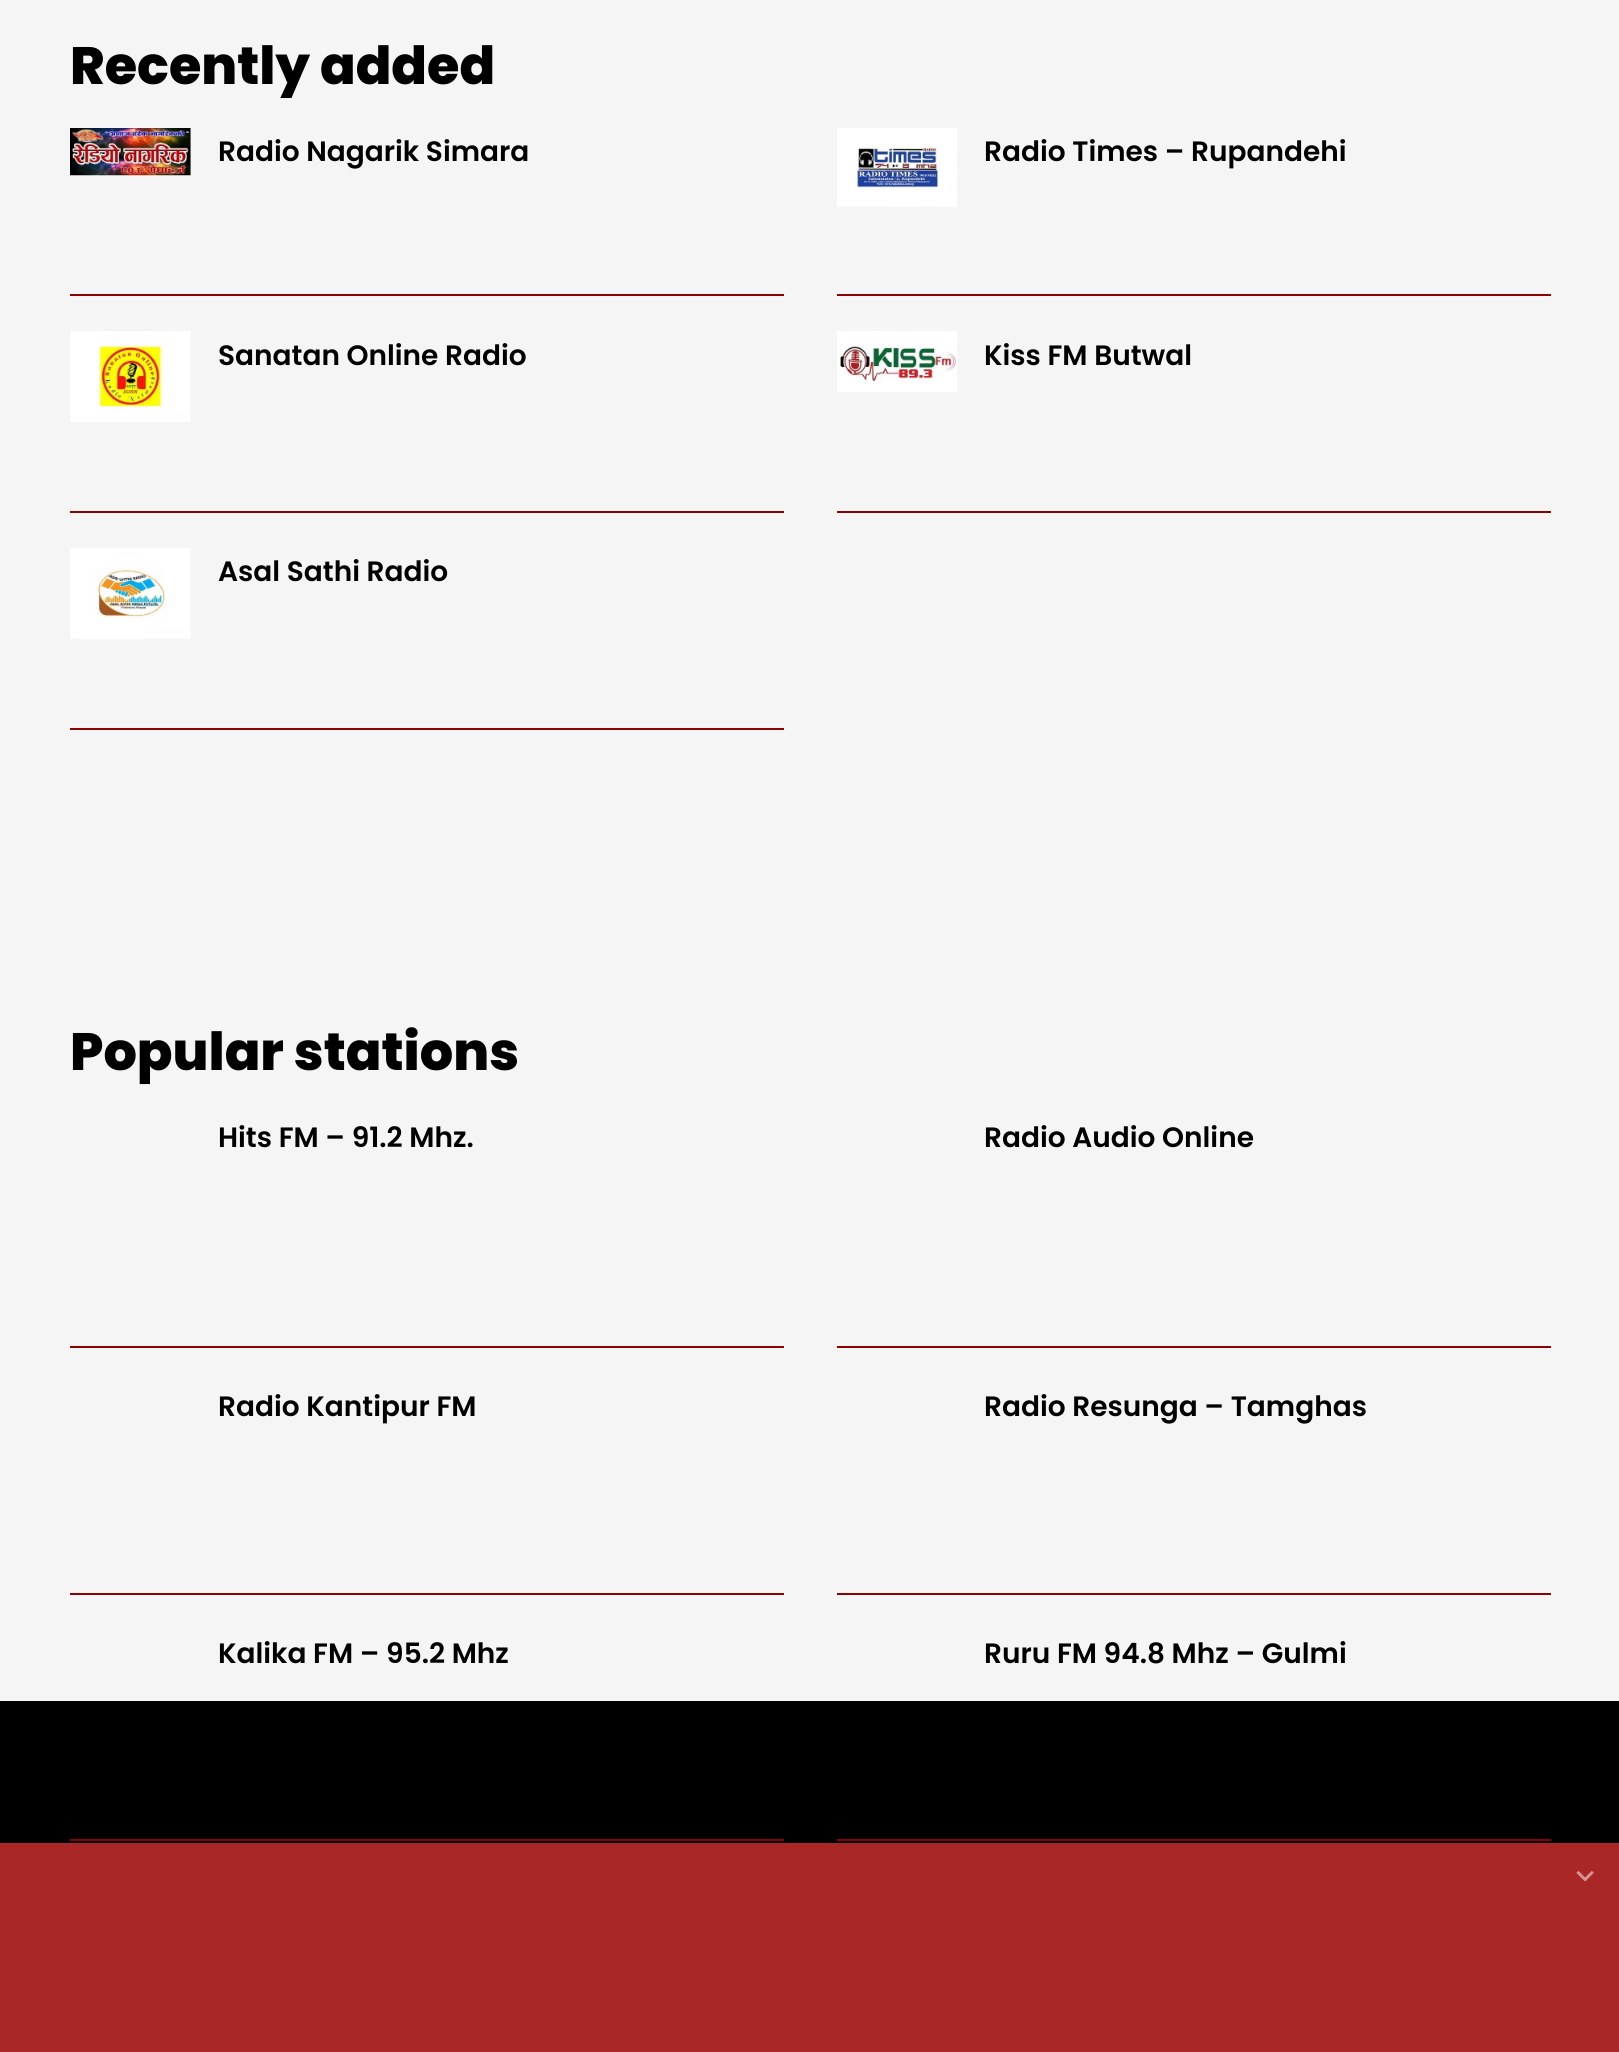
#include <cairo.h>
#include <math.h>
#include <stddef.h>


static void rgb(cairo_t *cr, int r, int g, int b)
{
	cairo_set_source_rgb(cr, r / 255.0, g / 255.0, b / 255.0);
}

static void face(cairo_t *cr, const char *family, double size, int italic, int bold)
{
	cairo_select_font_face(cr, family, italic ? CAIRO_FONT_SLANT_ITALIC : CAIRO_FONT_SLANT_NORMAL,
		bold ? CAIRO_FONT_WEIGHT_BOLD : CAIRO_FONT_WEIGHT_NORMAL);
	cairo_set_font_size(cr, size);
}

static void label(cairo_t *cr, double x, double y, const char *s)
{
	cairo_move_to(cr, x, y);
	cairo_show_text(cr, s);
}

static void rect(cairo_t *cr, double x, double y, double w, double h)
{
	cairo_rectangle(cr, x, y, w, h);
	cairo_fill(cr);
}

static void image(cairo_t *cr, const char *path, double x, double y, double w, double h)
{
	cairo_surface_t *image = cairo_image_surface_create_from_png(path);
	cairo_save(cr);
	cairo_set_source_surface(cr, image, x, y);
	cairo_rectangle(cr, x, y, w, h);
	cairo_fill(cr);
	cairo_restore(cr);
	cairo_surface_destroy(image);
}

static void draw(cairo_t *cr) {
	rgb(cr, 245, 245, 245);
	cairo_paint(cr);
	face(cr, "Poppins ExtraBold", 52.5, 0, 0);
	rgb(cr, 0, 0, 0);
	label(cr, 70, 84, "Recently added");
	rgb(cr, 139, 2, 2);
	rect(cr, 70, 294, 714, 2);
	image(cr, "image0.png", 70, 128, 121, 48);
	face(cr, "Poppins SemiBold", 28, 0, 0);
	rgb(cr, 0, 0, 0);
	label(cr, 218, 161, "Radio Nagarik Simara");
	rgb(cr, 139, 2, 2);
	rect(cr, 837, 294, 714, 2);
	image(cr, "image1.png", 837, 128, 120, 79);
	rgb(cr, 0, 0, 0);
	label(cr, 984, 161, "Radio Times – Rupandehi");
	rgb(cr, 139, 2, 2);
	rect(cr, 70, 511, 714, 2);
	image(cr, "image2.png", 70, 331, 121, 91);
	rgb(cr, 0, 0, 0);
	label(cr, 218, 365, "Sanatan Online Radio");
	rgb(cr, 139, 2, 2);
	rect(cr, 837, 511, 714, 2);
	image(cr, "image3.png", 837, 331, 120, 61);
	rgb(cr, 0, 0, 0);
	label(cr, 984, 365, "Kiss FM Butwal");
	rgb(cr, 139, 2, 2);
	rect(cr, 70, 728, 714, 2);
	image(cr, "image4.png", 70, 548, 121, 91);
	rgb(cr, 0, 0, 0);
	label(cr, 218, 581, "Asal Sathi Radio");
	face(cr, "Poppins ExtraBold", 52.5, 0, 0);
	label(cr, 70, 1070, "Popular stations");
	rgb(cr, 139, 2, 2);
	rect(cr, 70, 1346, 714, 2);
	face(cr, "Poppins SemiBold", 28, 0, 0);
	rgb(cr, 0, 0, 0);
	label(cr, 218, 1147, "Hits FM – 91.2 Mhz.");
	rgb(cr, 139, 2, 2);
	rect(cr, 837, 1346, 714, 2);
	rgb(cr, 0, 0, 0);
	label(cr, 984, 1147, "Radio Audio Online");
	rgb(cr, 139, 2, 2);
	rect(cr, 70, 1593, 714, 2);
	rgb(cr, 0, 0, 0);
	label(cr, 218, 1416, "Radio Kantipur FM");
	rgb(cr, 139, 2, 2);
	rect(cr, 837, 1593, 714, 2);
	rgb(cr, 0, 0, 0);
	label(cr, 984, 1416, "Radio Resunga – Tamghas");
	rect(cr, 0, 1701, 1619, 142);
	rgb(cr, 139, 2, 2);
	rect(cr, 70, 1839, 714, 2);
	rgb(cr, 0, 0, 0);
	label(cr, 218, 1663, "Kalika FM – 95.2 Mhz");
	rgb(cr, 139, 2, 2);
	rect(cr, 837, 1839, 714, 2);
	rgb(cr, 0, 0, 0);
	label(cr, 984, 1663, "Ruru FM 94.8 Mhz – Gulmi");
	rgb(cr, 170, 39, 39);
	rect(cr, 0, 1843, 1619, 209);
	face(cr, "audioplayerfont", 35, 0, 0);
	rgb(cr, 213, 147, 147);
	label(cr, 1568, 1890, "꤅");
}

int main(void) {
	cairo_surface_t *surface = cairo_image_surface_create(CAIRO_FORMAT_RGB24, 1619, 2052);
	cairo_t *cr = cairo_create(surface);
	cairo_font_options_t *options = cairo_font_options_create();
	cairo_font_options_set_hint_metrics(options, CAIRO_HINT_METRICS_OFF);
	cairo_font_options_set_hint_style(options, CAIRO_HINT_STYLE_NONE);
	cairo_set_font_options(cr, options);
	cairo_set_miter_limit(cr, 4);
	draw(cr);
	cairo_surface_write_to_png(surface, "render.png");
	cairo_font_options_destroy(options);
	cairo_destroy(cr);
	cairo_surface_destroy(surface);
	return 0;
}
